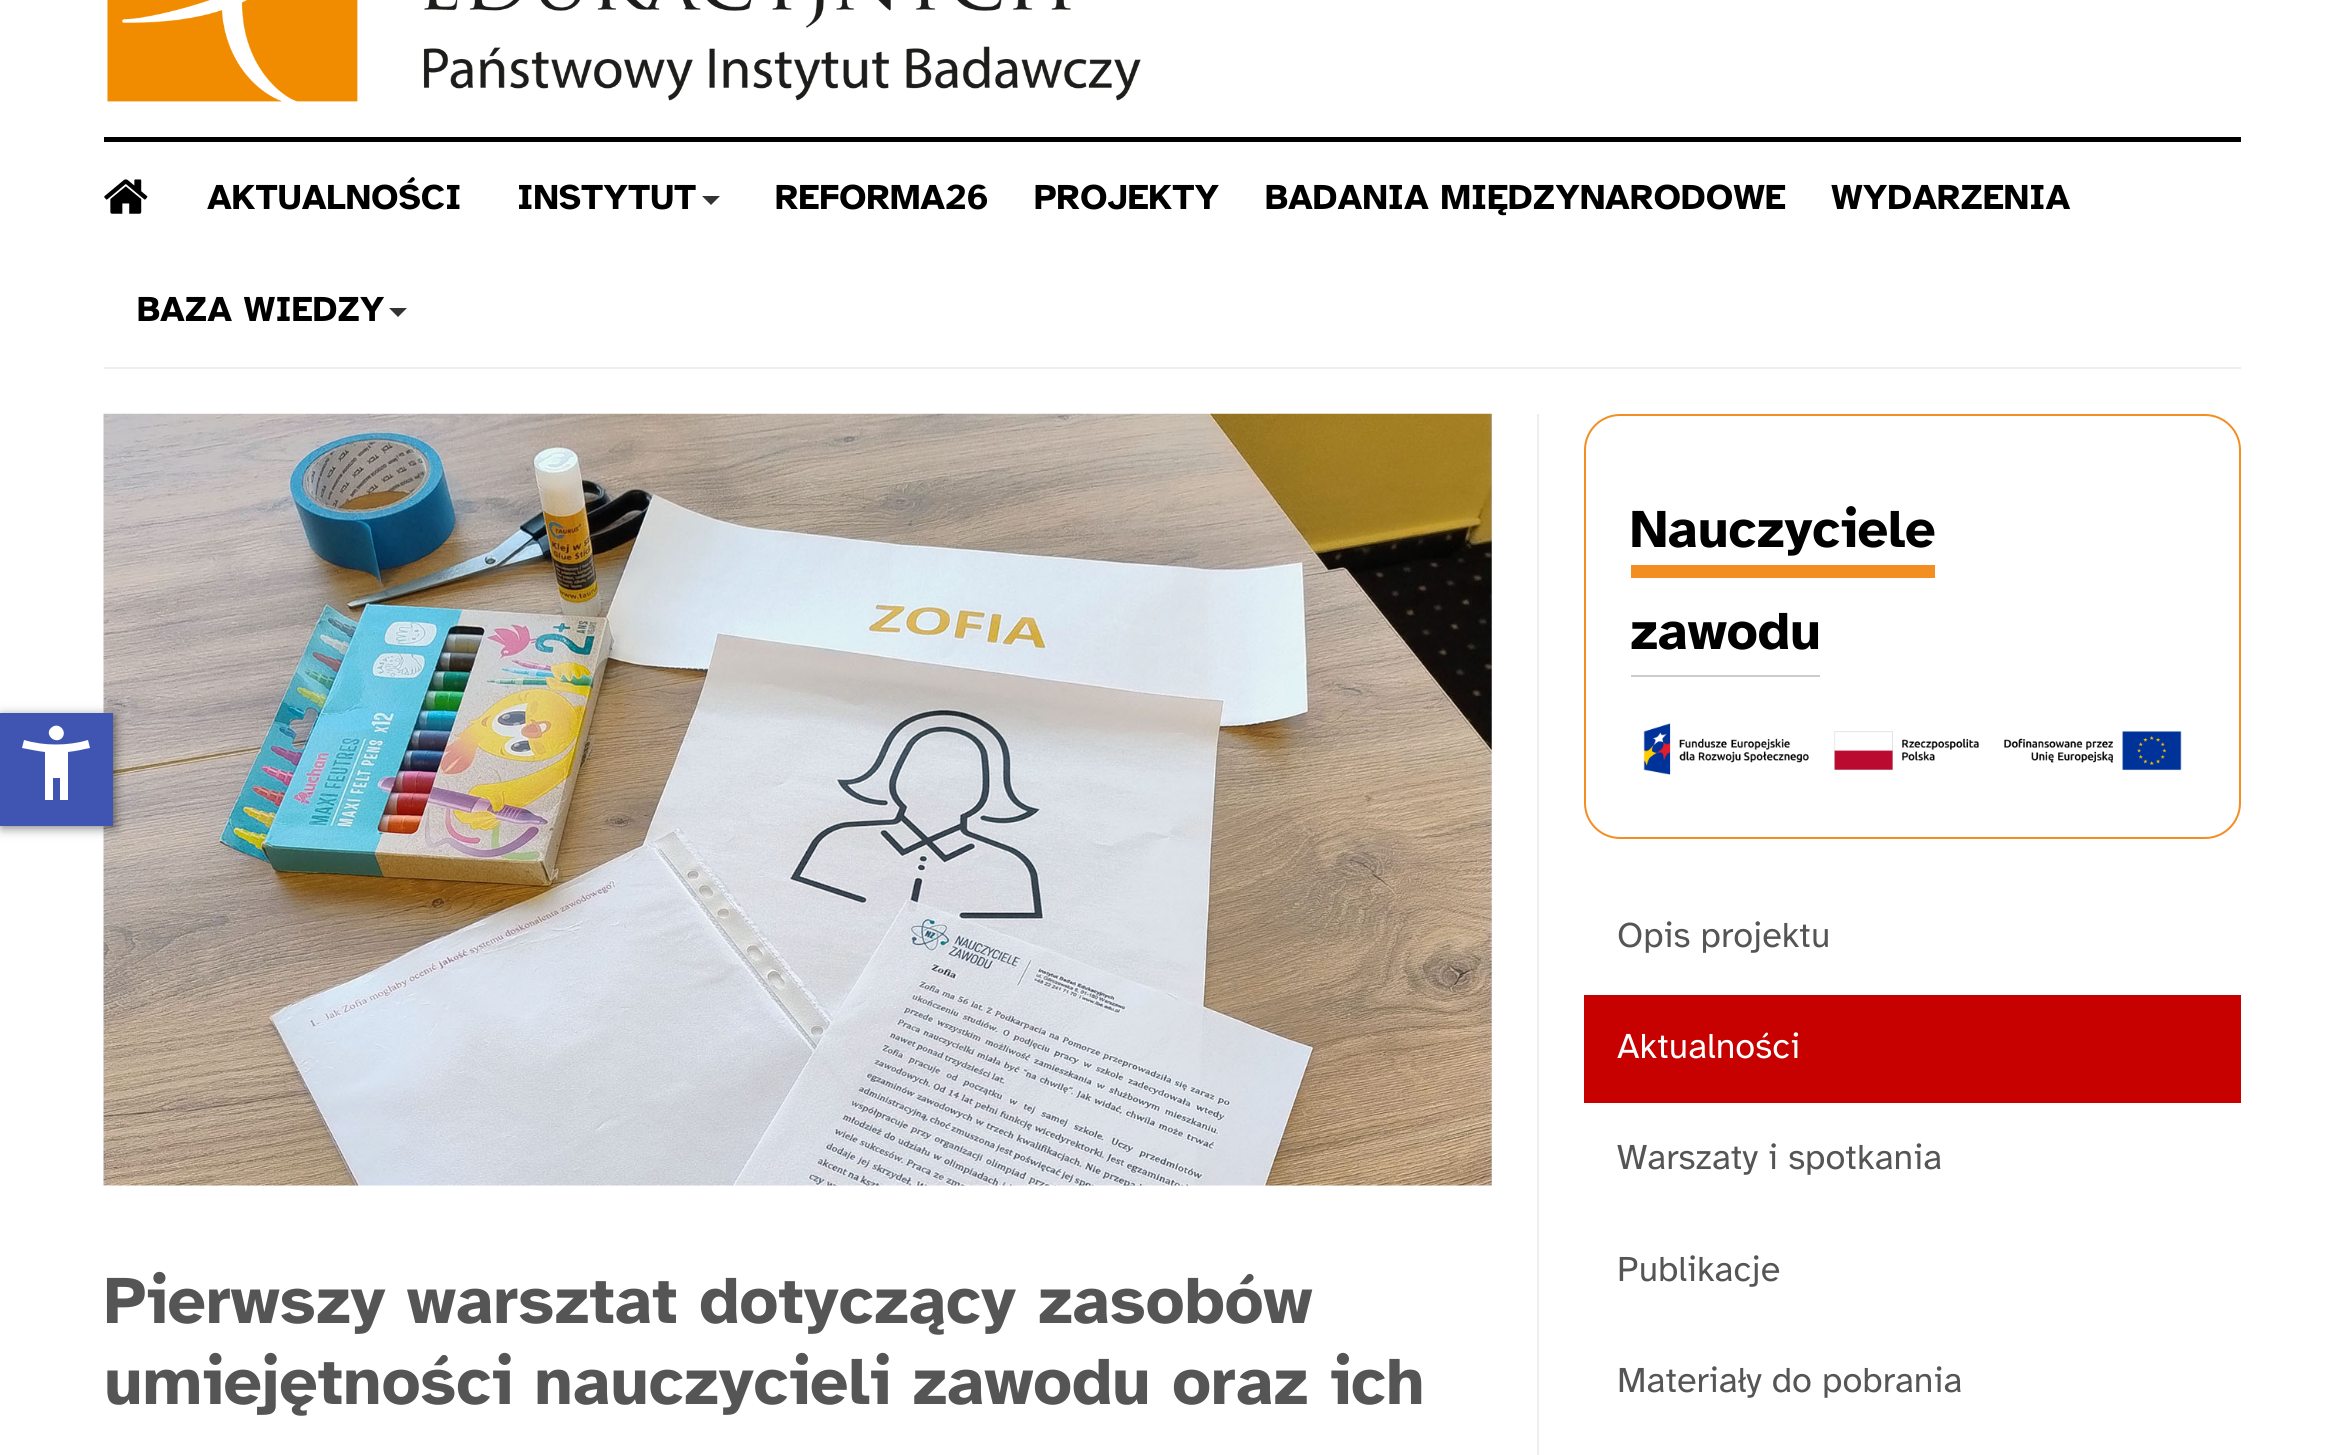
#include <cairo.h>
#include <math.h>
#include <stddef.h>


static void rgb(cairo_t *cr, int r, int g, int b)
{
	cairo_set_source_rgb(cr, r / 255.0, g / 255.0, b / 255.0);
}

static void face(cairo_t *cr, const char *family, double size, int italic, int bold)
{
	cairo_select_font_face(cr, family, italic ? CAIRO_FONT_SLANT_ITALIC : CAIRO_FONT_SLANT_NORMAL,
		bold ? CAIRO_FONT_WEIGHT_BOLD : CAIRO_FONT_WEIGHT_NORMAL);
	cairo_set_font_size(cr, size);
}

static void label(cairo_t *cr, double x, double y, const char *s)
{
	cairo_move_to(cr, x, y);
	cairo_show_text(cr, s);
}

static void rect(cairo_t *cr, double x, double y, double w, double h)
{
	cairo_rectangle(cr, x, y, w, h);
	cairo_fill(cr);
}

static void rrect(cairo_t *cr, double x, double y, double w, double h, double r)
{
	cairo_new_sub_path(cr);
	cairo_arc(cr, x + w - r, y + h - r, r, 0, M_PI / 2);
	cairo_arc(cr, x + r, y + h - r, r, M_PI / 2, M_PI);
	cairo_arc(cr, x + r, y + r, r, M_PI, 1.5 * M_PI);
	cairo_arc(cr, x + w - r, y + r, r, 1.5 * M_PI, 2 * M_PI);
	cairo_close_path(cr);
}

static void soft_shadow(cairo_t *cr, double x, double y, double w, double h, double r, double blur, double alpha)
{
	cairo_push_group_with_content(cr, CAIRO_CONTENT_ALPHA);
	cairo_set_operator(cr, CAIRO_OPERATOR_SOURCE);
	for (int i = 15; i >= -15 && fmin(w, h) + blur * i / 3 > 0; i -= 2) {
		double e = blur * i / 6;
		cairo_set_source_rgba(cr, 0, 0, 0, alpha * erfc((i - 1) / 8.5) / 2);
		rrect(cr, x - e, y - e, w + 2 * e, h + 2 * e, fmax(0, fmin(r + e + blur * .6, fmin(w, h) / 2 + e)));
		cairo_fill(cr);
	}
	cairo_pattern_t *soft = cairo_pop_group(cr);
	cairo_mask(cr, soft);
	cairo_pattern_destroy(soft);
}

static void image(cairo_t *cr, const char *path, double x, double y, double w, double h)
{
	cairo_surface_t *image = cairo_image_surface_create_from_png(path);
	cairo_save(cr);
	cairo_set_source_surface(cr, image, x, y);
	cairo_rectangle(cr, x, y, w, h);
	cairo_fill(cr);
	cairo_restore(cr);
	cairo_surface_destroy(image);
}

static void draw(cairo_t *cr) {
	rgb(cr, 255, 255, 255);
	cairo_paint(cr);
	image(cr, "image2.png", 103, 413, 1389, 773);
	rgb(cr, 0, 0, 0);
	soft_shadow(cr, 2, 716, 113, 112, 0, 5.5, 0.5);
	rgb(cr, 64, 84, 178);
	rect(cr, 0, 713, 113, 113);
	rgb(cr, 255, 255, 255);
	cairo_new_path(cr);
	cairo_move_to(cr, 62, 738);
	cairo_curve_to(cr, 55, 745, 44, 734, 51, 728);
	cairo_curve_to(cr, 58, 721, 68, 731, 62, 738);
	cairo_close_path(cr);
	cairo_move_to(cr, 88, 740);
	cairo_line_to(cr, 90, 748);
	cairo_curve_to(cr, 84, 749, 77, 751, 68, 752);
	cairo_line_to(cr, 68, 800);
	cairo_line_to(cr, 60, 800);
	cairo_line_to(cr, 60, 778);
	cairo_line_to(cr, 53, 778);
	cairo_line_to(cr, 53, 800);
	cairo_line_to(cr, 45, 800);
	cairo_line_to(cr, 45, 752);
	cairo_curve_to(cr, 36, 751, 28, 749, 22, 748);
	cairo_line_to(cr, 24, 740);
	cairo_curve_to(cr, 44, 746, 68, 746, 88, 740);
	cairo_close_path(cr);
	cairo_fill(cr);
	image(cr, "image0.png", 107, 0, 1034, 102);
	rgb(cr, 0, 0, 0);
	rect(cr, 104, 137, 2137, 5);
	rgb(cr, 238, 238, 238);
	rect(cr, 104, 367, 2137, 2);
	image(cr, "image1.png", 104, 179, 44, 35);
	face(cr, "Atkinson Hyperlegible", 36, 0, 1);
	rgb(cr, 0, 0, 0);
	label(cr, 207, 209, "AKTUALNOŚCI");
	label(cr, 517, 209, "INSTYTUT");
	rgb(cr, 51, 51, 51);
	cairo_new_path(cr);
	cairo_move_to(cr, 702, 196);
	cairo_line_to(cr, 720, 196);
	cairo_line_to(cr, 711, 205);
	cairo_close_path(cr);
	cairo_fill(cr);
	rgb(cr, 0, 0, 0);
	label(cr, 775, 209, "REFORMA26");
	label(cr, 1034, 209, "PROJEKTY");
	label(cr, 1265, 209, "BADANIA MIĘDZYNARODOWE");
	label(cr, 1831, 209, "WYDARZENIA");
	label(cr, 137, 321, "BAZA WIEDZY");
	rgb(cr, 51, 51, 51);
	cairo_new_path(cr);
	cairo_move_to(cr, 389, 308);
	cairo_line_to(cr, 407, 308);
	cairo_line_to(cr, 398, 317);
	cairo_close_path(cr);
	cairo_fill(cr);
	face(cr, "Atkinson Hyperlegible", 67.5, 0, 1);
	rgb(cr, 85, 85, 85);
	label(cr, 104, 1323, "Pierwszy warsztat dotyczący zasobów");
	label(cr, 104, 1404, "umiejętności nauczycieli zawodu oraz ich");
	rgb(cr, 238, 238, 238);
	rect(cr, 1537, 414, 2, 1041);
	rrect(cr, 1585, 415, 655, 423, 35);
	rgb(cr, 242, 142, 34);
	cairo_stroke(cr);
	face(cr, "Atkinson Hyperlegible", 54, 0, 1);
	rgb(cr, 0, 0, 0);
	label(cr, 1630, 547, "Nauczyciele");
	rgb(cr, 242, 142, 34);
	rect(cr, 1631, 565, 304, 13);
	rgb(cr, 0, 0, 0);
	label(cr, 1630, 649, "zawodu");
	rgb(cr, 204, 204, 204);
	rect(cr, 1631, 675, 189, 2);
	image(cr, "image3.png", 1643, 723, 539, 52);
	face(cr, "Atkinson Hyperlegible", 36, 0, 0);
	rgb(cr, 85, 85, 85);
	label(cr, 1617, 947, "Opis projektu");
	rgb(cr, 199, 0, 0);
	rect(cr, 1584, 995, 657, 108);
	rgb(cr, 255, 255, 255);
	label(cr, 1617, 1058, "Aktualności");
	rgb(cr, 85, 85, 85);
	label(cr, 1617, 1169, "Warszaty i spotkania");
	label(cr, 1617, 1281, "Publikacje");
	label(cr, 1617, 1392, "Materiały do pobrania");
}

int main(void) {
	cairo_surface_t *surface = cairo_image_surface_create(CAIRO_FORMAT_RGB24, 2343, 1455);
	cairo_t *cr = cairo_create(surface);
	cairo_font_options_t *options = cairo_font_options_create();
	cairo_font_options_set_hint_metrics(options, CAIRO_HINT_METRICS_OFF);
	cairo_font_options_set_hint_style(options, CAIRO_HINT_STYLE_NONE);
	cairo_set_font_options(cr, options);
	cairo_set_miter_limit(cr, 4);
	draw(cr);
	cairo_surface_write_to_png(surface, "render.png");
	cairo_font_options_destroy(options);
	cairo_destroy(cr);
	cairo_surface_destroy(surface);
	return 0;
}
